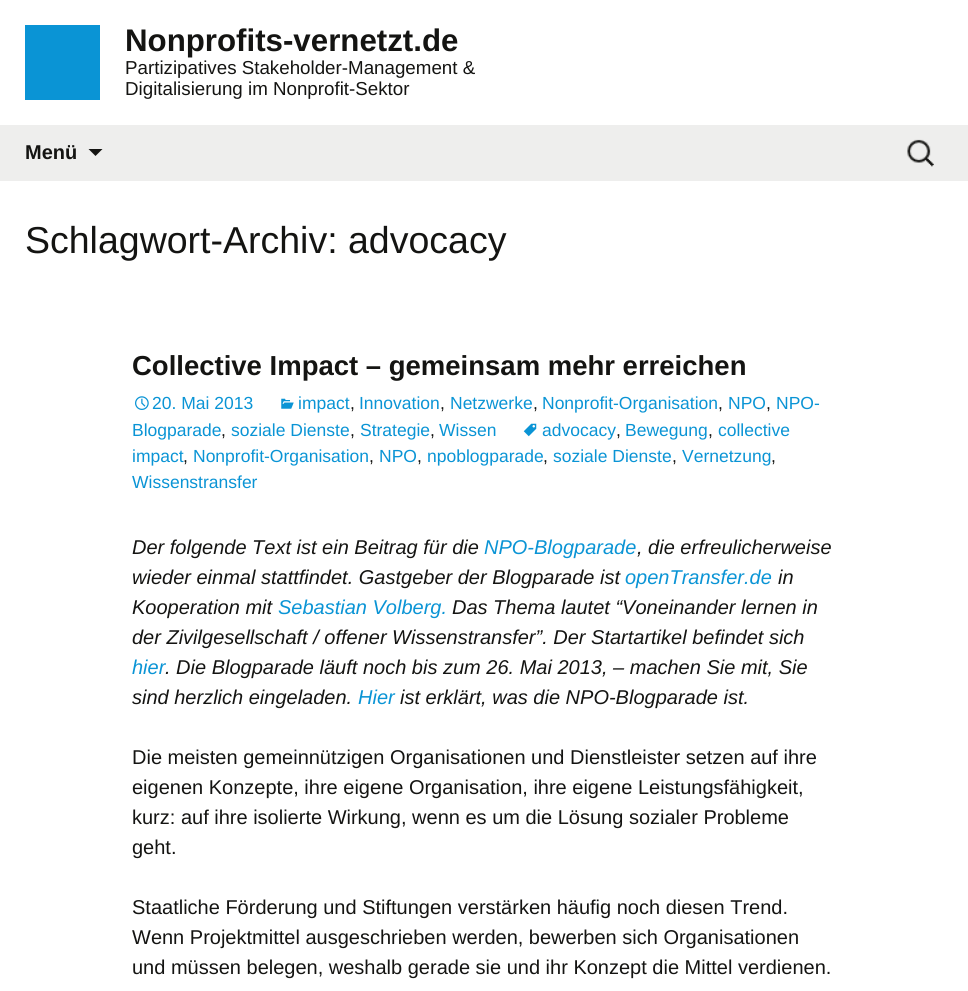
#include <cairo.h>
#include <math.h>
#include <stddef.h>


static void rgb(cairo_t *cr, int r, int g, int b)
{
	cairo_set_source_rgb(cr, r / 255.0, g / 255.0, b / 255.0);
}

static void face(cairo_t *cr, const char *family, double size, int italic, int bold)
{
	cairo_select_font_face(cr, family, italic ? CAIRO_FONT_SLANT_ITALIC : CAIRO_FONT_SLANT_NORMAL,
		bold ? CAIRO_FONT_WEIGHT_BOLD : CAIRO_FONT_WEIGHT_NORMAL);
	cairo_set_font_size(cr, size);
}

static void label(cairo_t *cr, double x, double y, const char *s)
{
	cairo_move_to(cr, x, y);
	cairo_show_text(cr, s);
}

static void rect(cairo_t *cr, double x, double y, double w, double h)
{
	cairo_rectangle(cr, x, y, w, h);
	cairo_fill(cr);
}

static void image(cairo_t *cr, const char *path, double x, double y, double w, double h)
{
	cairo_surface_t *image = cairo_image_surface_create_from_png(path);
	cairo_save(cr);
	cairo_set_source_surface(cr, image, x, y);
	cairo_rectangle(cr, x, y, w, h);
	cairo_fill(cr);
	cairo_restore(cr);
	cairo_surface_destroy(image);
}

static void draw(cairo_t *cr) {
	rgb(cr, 255, 255, 255);
	cairo_paint(cr);
	rgb(cr, 10, 148, 213);
	rect(cr, 25, 25, 75, 75);
	face(cr, "Liberation Sans", 31.25, 0, 1);
	rgb(cr, 20, 20, 18);
	label(cr, 125, 51, "Nonprofits-vernetzt.de");
	face(cr, "Liberation Sans", 18.75, 0, 0);
	label(cr, 125, 74, "Partizipatives Stakeholder-Management &");
	label(cr, 125, 95, "Digitalisierung im Nonprofit-Sektor");
	rgb(cr, 238, 238, 237);
	rect(cr, 0, 125, 968, 56);
	face(cr, "Liberation Sans", 20, 0, 1);
	rgb(cr, 20, 20, 18);
	label(cr, 25, 159, "Menü");
	cairo_new_path(cr);
	cairo_move_to(cr, 88.5, 149);
	cairo_line_to(cr, 95.5, 156);
	cairo_line_to(cr, 102.5, 149);
	cairo_close_path(cr);
	cairo_fill(cr);
	image(cr, "image0.png", 907, 139, 27, 28);
	face(cr, "Liberation Sans", 37.5, 0, 0);
	label(cr, 25, 253, "Schlagwort-Archiv: advocacy");
	face(cr, "Liberation Sans", 27.5, 0, 1);
	label(cr, 132, 375, "Collective Impact – gemeinsam mehr erreichen");
	image(cr, "image1.png", 281, 398, 13, 11);
	face(cr, "Liberation Sans", 17.5, 0, 0);
	rgb(cr, 10, 148, 213);
	label(cr, 298, 409, "impact");
	rgb(cr, 20, 20, 18);
	label(cr, 350, 409, ",");
	rgb(cr, 10, 148, 213);
	label(cr, 359, 409, "Innovation");
	rgb(cr, 20, 20, 18);
	label(cr, 440, 409, ",");
	rgb(cr, 10, 148, 213);
	label(cr, 450, 409, "Netzwerke");
	rgb(cr, 20, 20, 18);
	label(cr, 533, 409, ",");
	rgb(cr, 10, 148, 213);
	label(cr, 542, 409, "Nonprofit-Organisation");
	rgb(cr, 20, 20, 18);
	label(cr, 718, 409, ",");
	rgb(cr, 10, 148, 213);
	label(cr, 728, 409, "NPO");
	rgb(cr, 20, 20, 18);
	label(cr, 766, 409, ",");
	rgb(cr, 10, 148, 213);
	label(cr, 776, 409, "NPO-");
	label(cr, 132, 436, "Blogparade");
	rgb(cr, 20, 20, 18);
	label(cr, 221, 436, ",");
	rgb(cr, 10, 148, 213);
	label(cr, 231, 436, "soziale Dienste");
	rgb(cr, 20, 20, 18);
	label(cr, 350, 436, ",");
	rgb(cr, 10, 148, 213);
	label(cr, 360, 436, "Strategie");
	rgb(cr, 20, 20, 18);
	label(cr, 430, 436, ",");
	rgb(cr, 10, 148, 213);
	label(cr, 439, 436, "Wissen");
	image(cr, "image2.png", 135, 396, 14, 14);
	label(cr, 152, 409, "20. Mai 2013");
	image(cr, "image3.png", 523, 423, 14, 14);
	label(cr, 542, 436, "advocacy");
	rgb(cr, 20, 20, 18);
	label(cr, 616, 436, ",");
	rgb(cr, 10, 148, 213);
	label(cr, 625, 436, "Bewegung");
	rgb(cr, 20, 20, 18);
	label(cr, 708, 436, ",");
	rgb(cr, 10, 148, 213);
	label(cr, 718, 436, "collective");
	label(cr, 132, 462, "impact");
	rgb(cr, 20, 20, 18);
	label(cr, 183, 462, ",");
	rgb(cr, 10, 148, 213);
	label(cr, 193, 462, "Nonprofit-Organisation");
	rgb(cr, 20, 20, 18);
	label(cr, 369, 462, ",");
	rgb(cr, 10, 148, 213);
	label(cr, 379, 462, "NPO");
	rgb(cr, 20, 20, 18);
	label(cr, 417, 462, ",");
	rgb(cr, 10, 148, 213);
	label(cr, 427, 462, "npoblogparade");
	rgb(cr, 20, 20, 18);
	label(cr, 543, 462, ",");
	rgb(cr, 10, 148, 213);
	label(cr, 553, 462, "soziale Dienste");
	rgb(cr, 20, 20, 18);
	label(cr, 672, 462, ",");
	rgb(cr, 10, 148, 213);
	label(cr, 682, 462, "Vernetzung");
	rgb(cr, 20, 20, 18);
	label(cr, 771, 462, ",");
	rgb(cr, 10, 148, 213);
	label(cr, 132, 488, "Wissenstransfer");
	face(cr, "Liberation Sans", 20, 1, 0);
	rgb(cr, 20, 20, 18);
	label(cr, 132, 554, "Der folgende Text ist ein Beitrag für die");
	rgb(cr, 10, 148, 213);
	label(cr, 484, 554, "NPO-Blogparade");
	rgb(cr, 20, 20, 18);
	label(cr, 637, 554, ", die erfreulicherweise");
	label(cr, 132, 584, "wieder einmal stattfindet. Gastgeber der Blogparade ist");
	rgb(cr, 10, 148, 213);
	label(cr, 625, 584, "openTransfer.de");
	rgb(cr, 20, 20, 18);
	label(cr, 778, 584, "in");
	label(cr, 132, 614, "Kooperation mit");
	rgb(cr, 10, 148, 213);
	label(cr, 278, 614, "Sebastian Volberg.");
	rgb(cr, 20, 20, 18);
	label(cr, 452, 614, "Das Thema lautet “Voneinander lernen in");
	label(cr, 132, 644, "der Zivilgesellschaft / offener Wissenstransfer”. Der Startartikel befindet sich");
	rgb(cr, 10, 148, 213);
	label(cr, 132, 674, "hier");
	rgb(cr, 20, 20, 18);
	label(cr, 165, 674, ". Die Blogparade läuft noch bis zum 26. Mai 2013, – machen Sie mit, Sie");
	label(cr, 132, 704, "sind herzlich eingeladen.");
	rgb(cr, 10, 148, 213);
	label(cr, 358, 704, "Hier");
	rgb(cr, 20, 20, 18);
	label(cr, 400, 704, "ist erklärt, was die NPO-Blogparade ist.");
	face(cr, "Liberation Sans", 20, 0, 0);
	label(cr, 132, 764, "Die meisten gemeinnützigen Organisationen und Dienstleister setzen auf ihre");
	label(cr, 132, 794, "eigenen Konzepte, ihre eigene Organisation, ihre eigene Leistungsfähigkeit,");
	label(cr, 132, 824, "kurz: auf ihre isolierte Wirkung, wenn es um die Lösung sozialer Probleme");
	label(cr, 132, 854, "geht.");
	label(cr, 132, 914, "Staatliche Förderung und Stiftungen verstärken häufig noch diesen Trend.");
	label(cr, 132, 944, "Wenn Projektmittel ausgeschrieben werden, bewerben sich Organisationen");
	label(cr, 132, 974, "und müssen belegen, weshalb gerade sie und ihr Konzept die Mittel verdienen.");
}

int main(void) {
	cairo_surface_t *surface = cairo_image_surface_create(CAIRO_FORMAT_RGB24, 968, 991);
	cairo_t *cr = cairo_create(surface);
	cairo_font_options_t *options = cairo_font_options_create();
	cairo_font_options_set_hint_metrics(options, CAIRO_HINT_METRICS_OFF);
	cairo_font_options_set_hint_style(options, CAIRO_HINT_STYLE_NONE);
	cairo_set_font_options(cr, options);
	cairo_set_miter_limit(cr, 4);
	draw(cr);
	cairo_surface_write_to_png(surface, "render.png");
	cairo_font_options_destroy(options);
	cairo_destroy(cr);
	cairo_surface_destroy(surface);
	return 0;
}
